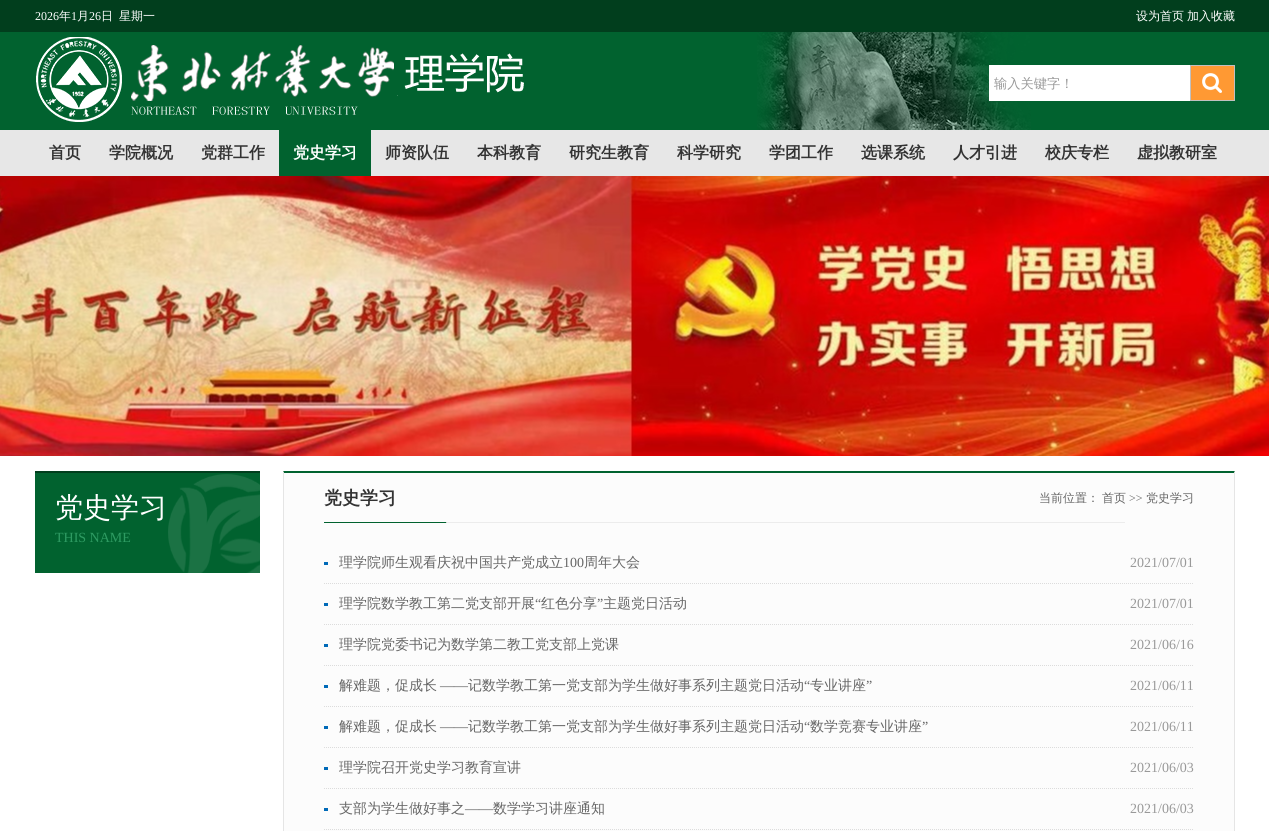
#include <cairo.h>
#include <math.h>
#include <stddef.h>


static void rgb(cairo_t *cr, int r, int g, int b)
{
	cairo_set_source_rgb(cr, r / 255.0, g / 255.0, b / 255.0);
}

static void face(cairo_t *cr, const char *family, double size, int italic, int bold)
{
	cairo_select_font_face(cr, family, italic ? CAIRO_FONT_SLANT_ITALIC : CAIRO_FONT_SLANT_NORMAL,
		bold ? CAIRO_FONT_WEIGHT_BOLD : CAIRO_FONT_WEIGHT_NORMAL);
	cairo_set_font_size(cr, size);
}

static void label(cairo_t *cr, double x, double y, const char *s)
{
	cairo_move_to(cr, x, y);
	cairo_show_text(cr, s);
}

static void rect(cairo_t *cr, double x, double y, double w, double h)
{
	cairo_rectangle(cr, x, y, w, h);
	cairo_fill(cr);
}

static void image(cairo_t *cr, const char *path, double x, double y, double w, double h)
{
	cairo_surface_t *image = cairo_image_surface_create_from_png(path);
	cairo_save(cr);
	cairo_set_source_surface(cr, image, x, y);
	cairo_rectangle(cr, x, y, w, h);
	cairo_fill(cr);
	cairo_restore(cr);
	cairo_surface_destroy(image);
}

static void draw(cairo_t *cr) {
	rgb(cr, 255, 255, 255);
	cairo_paint(cr);
	rgb(cr, 1, 98, 47);
	rect(cr, 0, 32, 1269, 98);
	rgb(cr, 1, 62, 29);
	rect(cr, 0, 0, 1269, 32);
	face(cr, "Liberation Serif", 12, 0, 0);
	rgb(cr, 255, 255, 255);
	label(cr, 35, 20, "2026");
	face(cr, "WenQuanYi Zen Hei Medium", 12, 0, 0);
	label(cr, 59, 20, "年");
	face(cr, "Liberation Serif", 12, 0, 0);
	label(cr, 71, 20, "1");
	face(cr, "WenQuanYi Zen Hei Medium", 12, 0, 0);
	label(cr, 77, 20, "月");
	face(cr, "Liberation Serif", 12, 0, 0);
	label(cr, 89, 20, "26");
	face(cr, "WenQuanYi Zen Hei Medium", 12, 0, 0);
	label(cr, 101, 20, "日");
	label(cr, 119, 20, "星期一");
	label(cr, 1136, 20, "设为首页");
	label(cr, 1187, 20, "加入收藏");
	image(cr, "image0.png", 757, 32, 274, 98);
	image(cr, "image1.png", 36, 37, 488, 85);
	rect(cr, 989, 65, 201, 36);
	face(cr, "WenQuanYi Zen Hei Medium", 13.25, 0, 0);
	rgb(cr, 153, 153, 153);
	label(cr, 994, 88, "输入关键字！");
	rgb(cr, 255, 153, 51);
	rect(cr, 1191, 66, 43, 34);
	image(cr, "image2.png", 1190, 65, 45, 36);
	rgb(cr, 231, 231, 231);
	rect(cr, 0, 130, 1269, 46);
	face(cr, "WenQuanYi Zen Hei", 16, 0, 1);
	rgb(cr, 51, 51, 51);
	label(cr, 49, 158, "首页");
	label(cr, 109, 158, "学院概况");
	label(cr, 201, 158, "党群工作");
	rgb(cr, 1, 98, 47);
	rect(cr, 279, 130, 92, 46);
	rgb(cr, 255, 255, 255);
	label(cr, 293, 158, "党史学习");
	rgb(cr, 51, 51, 51);
	label(cr, 385, 158, "师资队伍");
	label(cr, 477, 158, "本科教育");
	label(cr, 569, 158, "研究生教育");
	label(cr, 677, 158, "科学研究");
	label(cr, 769, 158, "学团工作");
	label(cr, 861, 158, "选课系统");
	label(cr, 953, 158, "人才引进");
	label(cr, 1045, 158, "校庆专栏");
	label(cr, 1137, 158, "虚拟教研室");
	image(cr, "image3.png", 0, 176, 1269, 280);
	rgb(cr, 1, 98, 47);
	rect(cr, 35, 473, 225, 100);
	image(cr, "image4.png", 168, 474, 92, 99);
	rgb(cr, 1, 62, 29);
	rect(cr, 35, 471, 225, 2);
	face(cr, "WenQuanYi Zen Hei Medium", 28, 0, 0);
	rgb(cr, 255, 255, 255);
	label(cr, 55, 517, "党史学习");
	face(cr, "Liberation Serif", 14, 0, 0);
	rgb(cr, 46, 155, 98);
	label(cr, 55, 542, "THIS NAME");
	rgb(cr, 252, 252, 252);
	rect(cr, 284, 473, 950, 358);
	rgb(cr, 1, 98, 47);
	cairo_new_path(cr);
	cairo_move_to(cr, 283, 471);
	cairo_line_to(cr, 1235, 471);
	cairo_line_to(cr, 1234, 473);
	cairo_line_to(cr, 284, 473);
	cairo_close_path(cr);
	cairo_fill(cr);
	rgb(cr, 229, 229, 229);
	cairo_new_path(cr);
	cairo_move_to(cr, 1235, 471);
	cairo_line_to(cr, 1235, 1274);
	cairo_line_to(cr, 1234, 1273);
	cairo_line_to(cr, 1234, 473);
	cairo_close_path(cr);
	cairo_fill(cr);
	cairo_new_path(cr);
	cairo_move_to(cr, 283, 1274);
	cairo_line_to(cr, 283, 471);
	cairo_line_to(cr, 284, 473);
	cairo_line_to(cr, 284, 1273);
	cairo_close_path(cr);
	cairo_fill(cr);
	image(cr, "image5.png", 324, 522, 801, 1);
	face(cr, "WenQuanYi Zen Hei", 18, 0, 1);
	rgb(cr, 51, 51, 51);
	label(cr, 324, 504, "党史学习");
	face(cr, "WenQuanYi Zen Hei Medium", 12, 0, 0);
	rgb(cr, 102, 102, 102);
	label(cr, 1039, 502, "当前位置：");
	label(cr, 1102, 502, "首页");
	face(cr, "Liberation Serif", 12, 0, 0);
	label(cr, 1129, 502, ">>");
	face(cr, "WenQuanYi Zen Hei Medium", 12, 0, 0);
	label(cr, 1146, 502, "党史学习");
	rgb(cr, 0, 106, 184);
	rect(cr, 324, 562, 4, 3);
	cairo_new_path(cr);
	cairo_move_to(cr, 324, 583.5);
	cairo_line_to(cr, 1194, 583.5);
	rgb(cr, 220, 220, 220);
	cairo_set_line_width(cr, 1);
	cairo_set_dash(cr, (double[]){1, 1}, 2, 0);
	cairo_stroke(cr);
	face(cr, "WenQuanYi Zen Hei Medium", 14, 0, 0);
	rgb(cr, 102, 102, 102);
	label(cr, 339, 567, "理学院师生观看庆祝中国共产党成立");
	face(cr, "Liberation Serif", 14, 0, 0);
	label(cr, 563, 567, "100");
	face(cr, "WenQuanYi Zen Hei Medium", 14, 0, 0);
	label(cr, 584, 567, "周年大会");
	face(cr, "Liberation Serif", 14, 0, 0);
	rgb(cr, 153, 153, 153);
	label(cr, 1130, 567, "2021/07/01");
	rgb(cr, 0, 106, 184);
	rect(cr, 324, 603, 4, 3);
	cairo_new_path(cr);
	cairo_move_to(cr, 324, 624.5);
	cairo_line_to(cr, 1194, 624.5);
	rgb(cr, 220, 220, 220);
	cairo_stroke(cr);
	face(cr, "WenQuanYi Zen Hei Medium", 14, 0, 0);
	rgb(cr, 102, 102, 102);
	label(cr, 339, 608, "理学院数学教工第二党支部开展");
	face(cr, "Liberation Serif", 14, 0, 0);
	label(cr, 535, 608, "“");
	face(cr, "WenQuanYi Zen Hei Medium", 14, 0, 0);
	label(cr, 541, 608, "红色分享");
	face(cr, "Liberation Serif", 14, 0, 0);
	label(cr, 597, 608, "”");
	face(cr, "WenQuanYi Zen Hei Medium", 14, 0, 0);
	label(cr, 603, 608, "主题党日活动");
	face(cr, "Liberation Serif", 14, 0, 0);
	rgb(cr, 153, 153, 153);
	label(cr, 1130, 608, "2021/07/01");
	rgb(cr, 0, 106, 184);
	rect(cr, 324, 644, 4, 3);
	cairo_new_path(cr);
	cairo_move_to(cr, 324, 665.5);
	cairo_line_to(cr, 1194, 665.5);
	rgb(cr, 220, 220, 220);
	cairo_stroke(cr);
	face(cr, "WenQuanYi Zen Hei Medium", 14, 0, 0);
	rgb(cr, 102, 102, 102);
	label(cr, 339, 649, "理学院党委书记为数学第二教工党支部上党课");
	face(cr, "Liberation Serif", 14, 0, 0);
	rgb(cr, 153, 153, 153);
	label(cr, 1130, 649, "2021/06/16");
	rgb(cr, 0, 106, 184);
	rect(cr, 324, 685, 4, 3);
	cairo_new_path(cr);
	cairo_move_to(cr, 324, 706.5);
	cairo_line_to(cr, 1194, 706.5);
	rgb(cr, 220, 220, 220);
	cairo_stroke(cr);
	face(cr, "WenQuanYi Zen Hei Medium", 14, 0, 0);
	rgb(cr, 102, 102, 102);
	label(cr, 339, 690, "解难题，促成长");
	face(cr, "Liberation Serif", 14, 0, 0);
	label(cr, 440, 690, "——");
	face(cr, "WenQuanYi Zen Hei Medium", 14, 0, 0);
	label(cr, 468, 690, "记数学教工第一党支部为学生做好事系列主题党日活动");
	face(cr, "Liberation Serif", 14, 0, 0);
	label(cr, 804, 690, "“");
	face(cr, "WenQuanYi Zen Hei Medium", 14, 0, 0);
	label(cr, 810, 690, "专业讲座");
	face(cr, "Liberation Serif", 14, 0, 0);
	label(cr, 866, 690, "”");
	rgb(cr, 153, 153, 153);
	label(cr, 1130, 690, "2021/06/11");
	rgb(cr, 0, 106, 184);
	rect(cr, 324, 726, 4, 3);
	cairo_new_path(cr);
	cairo_move_to(cr, 324, 747.5);
	cairo_line_to(cr, 1194, 747.5);
	rgb(cr, 220, 220, 220);
	cairo_stroke(cr);
	face(cr, "WenQuanYi Zen Hei Medium", 14, 0, 0);
	rgb(cr, 102, 102, 102);
	label(cr, 339, 731, "解难题，促成长");
	face(cr, "Liberation Serif", 14, 0, 0);
	label(cr, 440, 731, "——");
	face(cr, "WenQuanYi Zen Hei Medium", 14, 0, 0);
	label(cr, 468, 731, "记数学教工第一党支部为学生做好事系列主题党日活动");
	face(cr, "Liberation Serif", 14, 0, 0);
	label(cr, 804, 731, "“");
	face(cr, "WenQuanYi Zen Hei Medium", 14, 0, 0);
	label(cr, 810, 731, "数学竞赛专业讲座");
	face(cr, "Liberation Serif", 14, 0, 0);
	label(cr, 922, 731, "”");
	rgb(cr, 153, 153, 153);
	label(cr, 1130, 731, "2021/06/11");
	rgb(cr, 0, 106, 184);
	rect(cr, 324, 767, 4, 3);
	cairo_new_path(cr);
	cairo_move_to(cr, 324, 788.5);
	cairo_line_to(cr, 1194, 788.5);
	rgb(cr, 220, 220, 220);
	cairo_stroke(cr);
	face(cr, "WenQuanYi Zen Hei Medium", 14, 0, 0);
	rgb(cr, 102, 102, 102);
	label(cr, 339, 772, "理学院召开党史学习教育宣讲");
	face(cr, "Liberation Serif", 14, 0, 0);
	rgb(cr, 153, 153, 153);
	label(cr, 1130, 772, "2021/06/03");
	rgb(cr, 0, 106, 184);
	rect(cr, 324, 808, 4, 3);
	cairo_new_path(cr);
	cairo_move_to(cr, 324, 829.5);
	cairo_line_to(cr, 1194, 829.5);
	rgb(cr, 220, 220, 220);
	cairo_stroke(cr);
	face(cr, "WenQuanYi Zen Hei Medium", 14, 0, 0);
	rgb(cr, 102, 102, 102);
	label(cr, 339, 813, "支部为学生做好事之");
	face(cr, "Liberation Serif", 14, 0, 0);
	label(cr, 465, 813, "——");
	face(cr, "WenQuanYi Zen Hei Medium", 14, 0, 0);
	label(cr, 493, 813, "数学学习讲座通知");
	face(cr, "Liberation Serif", 14, 0, 0);
	rgb(cr, 153, 153, 153);
	label(cr, 1130, 813, "2021/06/03");
}

int main(void) {
	cairo_surface_t *surface = cairo_image_surface_create(CAIRO_FORMAT_RGB24, 1269, 831);
	cairo_t *cr = cairo_create(surface);
	cairo_font_options_t *options = cairo_font_options_create();
	cairo_font_options_set_hint_metrics(options, CAIRO_HINT_METRICS_OFF);
	cairo_font_options_set_hint_style(options, CAIRO_HINT_STYLE_NONE);
	cairo_set_font_options(cr, options);
	cairo_set_miter_limit(cr, 4);
	draw(cr);
	cairo_surface_write_to_png(surface, "render.png");
	cairo_font_options_destroy(options);
	cairo_destroy(cr);
	cairo_surface_destroy(surface);
	return 0;
}
